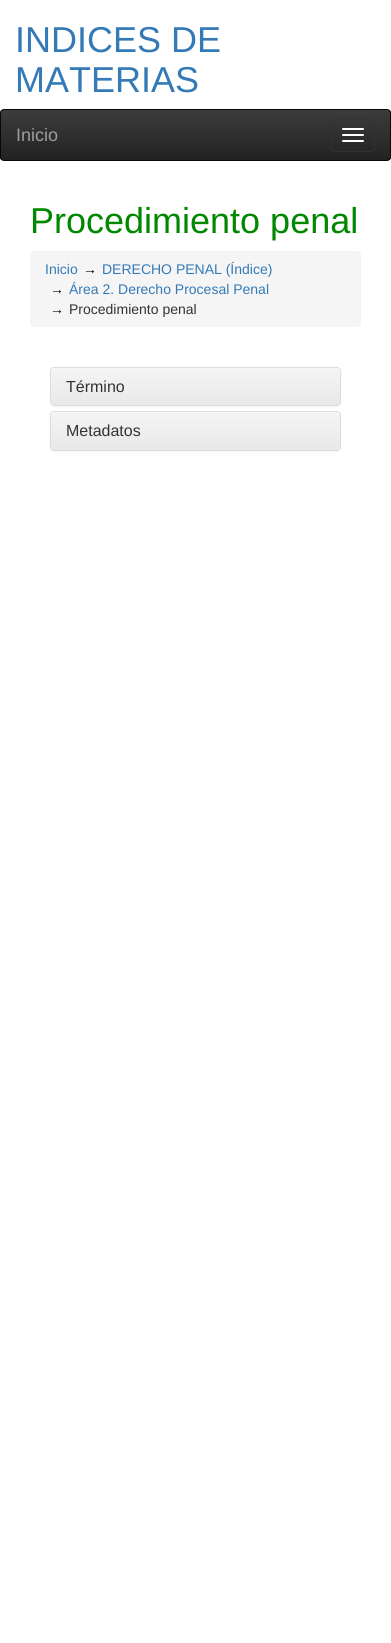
#include <cairo.h>
#include <math.h>
#include <stddef.h>


static void rgb(cairo_t *cr, int r, int g, int b)
{
	cairo_set_source_rgb(cr, r / 255.0, g / 255.0, b / 255.0);
}

static void face(cairo_t *cr, const char *family, double size, int italic, int bold)
{
	cairo_select_font_face(cr, family, italic ? CAIRO_FONT_SLANT_ITALIC : CAIRO_FONT_SLANT_NORMAL,
		bold ? CAIRO_FONT_WEIGHT_BOLD : CAIRO_FONT_WEIGHT_NORMAL);
	cairo_set_font_size(cr, size);
}

static void label(cairo_t *cr, double x, double y, const char *s)
{
	cairo_move_to(cr, x, y);
	cairo_show_text(cr, s);
}

static void rect(cairo_t *cr, double x, double y, double w, double h)
{
	cairo_rectangle(cr, x, y, w, h);
	cairo_fill(cr);
}

static void rrect(cairo_t *cr, double x, double y, double w, double h, double r)
{
	cairo_new_sub_path(cr);
	cairo_arc(cr, x + w - r, y + h - r, r, 0, M_PI / 2);
	cairo_arc(cr, x + r, y + h - r, r, M_PI / 2, M_PI);
	cairo_arc(cr, x + r, y + r, r, M_PI, 1.5 * M_PI);
	cairo_arc(cr, x + w - r, y + r, r, 1.5 * M_PI, 2 * M_PI);
	cairo_close_path(cr);
}

static void soft_shadow(cairo_t *cr, double x, double y, double w, double h, double r, double blur, double alpha)
{
	cairo_push_group_with_content(cr, CAIRO_CONTENT_ALPHA);
	cairo_set_operator(cr, CAIRO_OPERATOR_SOURCE);
	for (int i = 15; i >= -15 && fmin(w, h) + blur * i / 3 > 0; i -= 2) {
		double e = blur * i / 6;
		cairo_set_source_rgba(cr, 0, 0, 0, alpha * erfc((i - 1) / 8.5) / 2);
		rrect(cr, x - e, y - e, w + 2 * e, h + 2 * e, fmax(0, fmin(r + e + blur * .6, fmin(w, h) / 2 + e)));
		cairo_fill(cr);
	}
	cairo_pattern_t *soft = cairo_pop_group(cr);
	cairo_mask(cr, soft);
	cairo_pattern_destroy(soft);
}

static void draw(cairo_t *cr) {
	cairo_pattern_t *gradient;
	rgb(cr, 255, 255, 255);
	cairo_paint(cr);
	face(cr, "Liberation Sans", 36, 0, 0);
	rgb(cr, 51, 122, 183);
	label(cr, 15, 52, "INDICES DE");
	label(cr, 15, 92, "MATERIAS");
	cairo_save(cr);
	rrect(cr, 0, 109, 391, 52, 4);
	cairo_clip(cr);
	gradient = cairo_pattern_create_linear(196, 110, 196, 160);
	cairo_pattern_add_color_stop_rgba(gradient, 0, 0.235, 0.235, 0.235, 1);
	cairo_pattern_add_color_stop_rgba(gradient, 1, 0.133, 0.133, 0.133, 1);
	cairo_set_source(cr, gradient);
	cairo_pattern_destroy(gradient);
	rect(cr, 0, 110, 391, 50);
	cairo_restore(cr);
	rrect(cr, 0.5, 109.5, 390, 51, 3.5);
	rgb(cr, 8, 8, 8);
	cairo_set_line_width(cr, 1);
	cairo_stroke(cr);
	face(cr, "Liberation Sans", 18, 0, 0);
	rgb(cr, 157, 157, 157);
	label(cr, 16, 141, "Inicio");
	rrect(cr, 331.5, 118.5, 43, 33, 3.5);
	rgb(cr, 51, 51, 51);
	cairo_stroke(cr);
	rgb(cr, 255, 255, 255);
	rrect(cr, 342, 128, 22, 2, 1);
	cairo_fill(cr);
	rrect(cr, 342, 134, 22, 2, 1);
	cairo_fill(cr);
	rrect(cr, 342, 140, 22, 2, 1);
	cairo_fill(cr);
	face(cr, "Liberation Sans", 36, 0, 0);
	rgb(cr, 0, 136, 0);
	label(cr, 30, 233, "Procedimiento penal");
	rgb(cr, 245, 245, 245);
	rrect(cr, 30, 251, 331, 76, 4);
	cairo_fill(cr);
	face(cr, "Liberation Sans", 14, 0, 0);
	rgb(cr, 51, 122, 183);
	label(cr, 45, 274, "Inicio");
	rgb(cr, 0, 0, 0);
	label(cr, 83, 274, "→");
	rgb(cr, 51, 122, 183);
	label(cr, 102, 274, "DERECHO PENAL (Índice)");
	rgb(cr, 0, 0, 0);
	label(cr, 50, 294, "→");
	rgb(cr, 51, 122, 183);
	label(cr, 69, 294, "Área 2. Derecho Procesal Penal");
	rgb(cr, 0, 0, 0);
	label(cr, 50, 314, "→");
	rgb(cr, 51, 51, 51);
	label(cr, 69, 314, "Procedimiento penal");
	rgb(cr, 0, 0, 0);
	soft_shadow(cr, 50, 368, 291, 39, 4, 1, 0.05);
	rrect(cr, 50.5, 367.5, 290, 38, 3.5);
	rgb(cr, 221, 221, 221);
	cairo_stroke(cr);
	gradient = cairo_pattern_create_linear(196, 368, 196, 405);
	cairo_pattern_add_color_stop_rgba(gradient, 0, 0.961, 0.961, 0.961, 1);
	cairo_pattern_add_color_stop_rgba(gradient, 1, 0.91, 0.91, 0.91, 1);
	cairo_set_source(cr, gradient);
	cairo_pattern_destroy(gradient);
	cairo_new_path(cr);
	cairo_move_to(cr, 54, 368);
	cairo_line_to(cr, 337, 368);
	cairo_curve_to(cr, 338.5, 368, 340, 369.5, 340, 371);
	cairo_line_to(cr, 340, 405);
	cairo_line_to(cr, 51, 405);
	cairo_line_to(cr, 51, 371);
	cairo_curve_to(cr, 51, 369.5, 52.5, 368, 54, 368);
	cairo_close_path(cr);
	cairo_fill(cr);
	face(cr, "Liberation Sans", 16, 0, 0);
	rgb(cr, 51, 51, 51);
	label(cr, 66, 392, "Término");
	rgb(cr, 0, 0, 0);
	soft_shadow(cr, 50, 412, 291, 40, 4, 1, 0.05);
	rrect(cr, 50.5, 411.5, 290, 39, 3.5);
	rgb(cr, 221, 221, 221);
	cairo_stroke(cr);
	gradient = cairo_pattern_create_linear(196, 412, 196, 450);
	cairo_pattern_add_color_stop_rgba(gradient, 0, 0.961, 0.961, 0.961, 1);
	cairo_pattern_add_color_stop_rgba(gradient, 1, 0.91, 0.91, 0.91, 1);
	cairo_set_source(cr, gradient);
	cairo_pattern_destroy(gradient);
	cairo_new_path(cr);
	cairo_move_to(cr, 54, 412);
	cairo_line_to(cr, 337, 412);
	cairo_curve_to(cr, 338.5, 412, 340, 413.5, 340, 415);
	cairo_line_to(cr, 340, 450);
	cairo_line_to(cr, 51, 450);
	cairo_line_to(cr, 51, 415);
	cairo_curve_to(cr, 51, 413.5, 52.5, 412, 54, 412);
	cairo_close_path(cr);
	cairo_fill(cr);
	rgb(cr, 51, 51, 51);
	label(cr, 66, 436, "Metadatos");
}

int main(void) {
	cairo_surface_t *surface = cairo_image_surface_create(CAIRO_FORMAT_RGB24, 391, 1643);
	cairo_t *cr = cairo_create(surface);
	cairo_font_options_t *options = cairo_font_options_create();
	cairo_font_options_set_hint_metrics(options, CAIRO_HINT_METRICS_OFF);
	cairo_font_options_set_hint_style(options, CAIRO_HINT_STYLE_NONE);
	cairo_set_font_options(cr, options);
	cairo_set_miter_limit(cr, 4);
	draw(cr);
	cairo_surface_write_to_png(surface, "render.png");
	cairo_font_options_destroy(options);
	cairo_destroy(cr);
	cairo_surface_destroy(surface);
	return 0;
}
